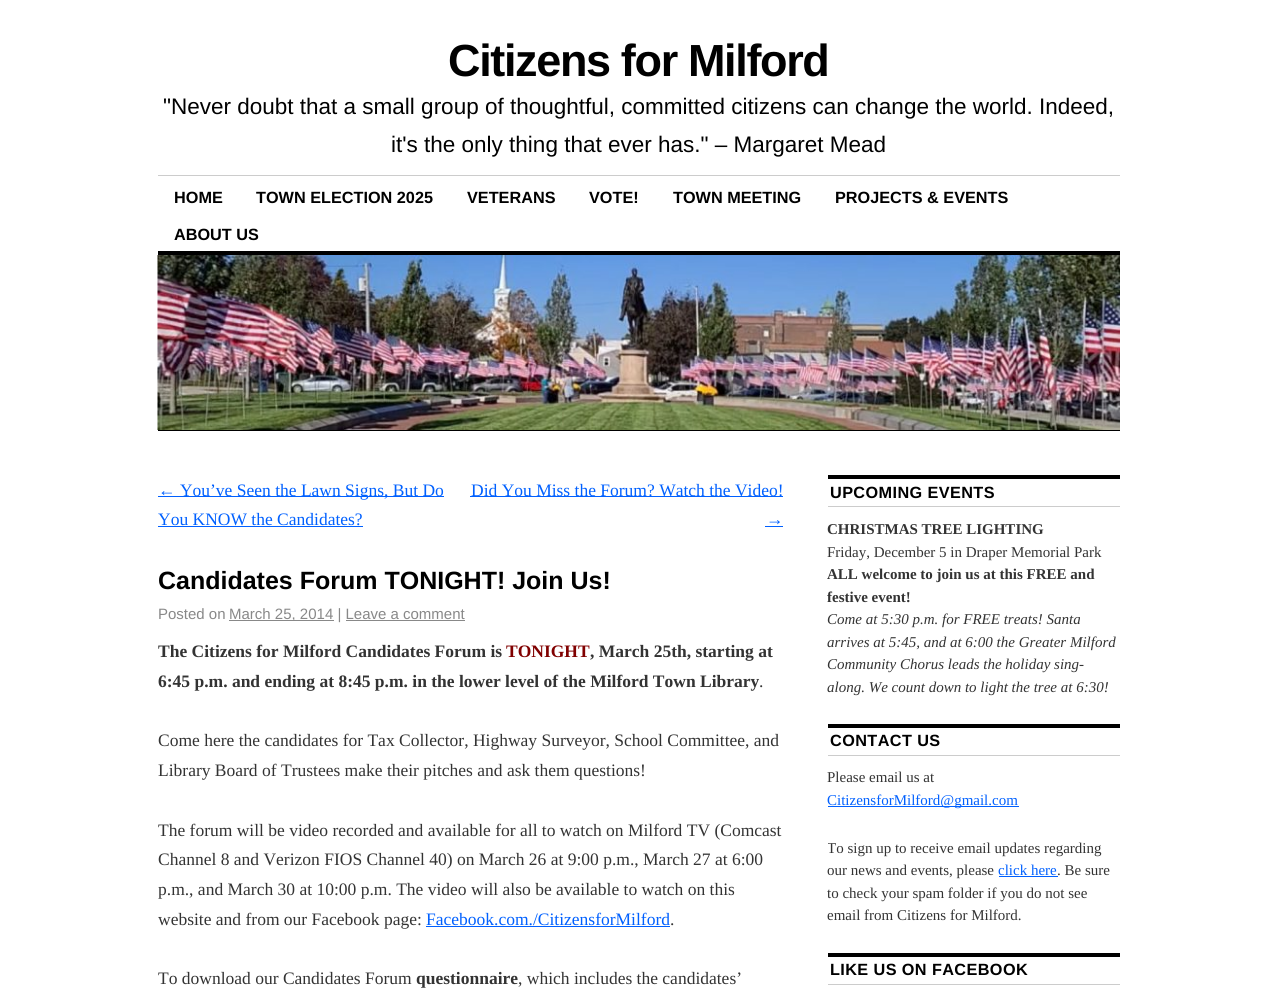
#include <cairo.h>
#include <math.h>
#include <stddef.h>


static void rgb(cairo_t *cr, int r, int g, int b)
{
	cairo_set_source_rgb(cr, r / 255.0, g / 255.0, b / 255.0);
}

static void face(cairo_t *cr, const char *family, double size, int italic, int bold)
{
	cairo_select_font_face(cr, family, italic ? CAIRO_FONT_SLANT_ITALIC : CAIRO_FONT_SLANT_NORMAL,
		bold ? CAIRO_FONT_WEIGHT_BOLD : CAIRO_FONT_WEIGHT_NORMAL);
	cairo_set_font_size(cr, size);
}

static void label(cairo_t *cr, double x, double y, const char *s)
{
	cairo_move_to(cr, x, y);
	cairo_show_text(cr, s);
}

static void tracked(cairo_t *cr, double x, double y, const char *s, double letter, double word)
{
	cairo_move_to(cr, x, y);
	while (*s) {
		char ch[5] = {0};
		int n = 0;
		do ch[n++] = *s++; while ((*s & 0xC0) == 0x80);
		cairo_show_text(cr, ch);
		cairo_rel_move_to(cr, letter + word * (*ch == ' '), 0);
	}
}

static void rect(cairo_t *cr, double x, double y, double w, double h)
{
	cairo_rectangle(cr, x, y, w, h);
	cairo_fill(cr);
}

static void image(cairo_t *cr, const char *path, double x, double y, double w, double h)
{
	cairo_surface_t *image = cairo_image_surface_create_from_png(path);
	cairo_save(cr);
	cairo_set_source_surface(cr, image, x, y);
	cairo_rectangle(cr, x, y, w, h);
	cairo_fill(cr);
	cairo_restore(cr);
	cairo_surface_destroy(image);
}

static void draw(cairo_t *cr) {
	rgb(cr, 255, 255, 255);
	cairo_paint(cr);
	face(cr, "Liberation Sans", 45, 0, 1);
	rgb(cr, 0, 0, 0);
	tracked(cr, 448, 76, "Citizens for Milford", -1.35, 0);
	face(cr, "Liberation Sans", 22.5, 0, 0);
	label(cr, 163, 114, "\"Never doubt that a small group of thoughtful, committed citizens can change the world. Indeed,");
	label(cr, 391, 152, "it's the only thing that ever has.\" – Margaret Mead");
	rgb(cr, 204, 204, 204);
	rect(cr, 158, 175, 962, 1);
	face(cr, "Liberation Sans", 16.25, 0, 1);
	rgb(cr, 0, 0, 0);
	label(cr, 174, 203, "HOME");
	label(cr, 256, 203, "TOWN ELECTION 2025");
	label(cr, 467, 203, "VETERANS");
	label(cr, 589, 203, "VOTE!");
	label(cr, 673, 203, "TOWN MEETING");
	label(cr, 835, 203, "PROJECTS & EVENTS");
	label(cr, 174, 240, "ABOUT US");
	rect(cr, 158, 251, 962, 4);
	image(cr, "image0.png", 157, 255, 963, 175);
	rect(cr, 158, 430, 962, 1);
	rgb(cr, 0, 96, 255);
	rect(cr, 158, 496, 286, 1);
	face(cr, "Liberation Serif", 17.5, 0, 0);
	label(cr, 158, 496, "← You’ve Seen the Lawn Signs, But Do");
	label(cr, 158, 525, "You KNOW the Candidates?");
	rect(cr, 158, 526, 205, 1);
	rect(cr, 470, 496, 313, 1);
	label(cr, 471, 496, "Did You Miss the Forum? Watch the Video!");
	label(cr, 766, 525, "→");
	rect(cr, 765, 526, 18, 1);
	face(cr, "Liberation Sans", 25, 0, 1);
	rgb(cr, 0, 0, 0);
	label(cr, 158, 589, "Candidates Forum TONIGHT! Join Us!");
	face(cr, "Liberation Sans", 15, 0, 0);
	rgb(cr, 136, 136, 136);
	label(cr, 158, 619, "Posted on");
	rect(cr, 229, 620, 105, 1);
	label(cr, 229, 619, "March 25, 2014 | Leave a comment");
	rect(cr, 346, 620, 119, 1);
	face(cr, "Liberation Serif", 17.5, 0, 1);
	rgb(cr, 51, 51, 51);
	label(cr, 158, 657, "The Citizens for Milford Candidates Forum is");
	rgb(cr, 128, 0, 0);
	label(cr, 506, 657, "TONIGHT");
	rgb(cr, 51, 51, 51);
	label(cr, 590, 657, ", March 25th, starting at");
	label(cr, 158, 687, "6:45 p.m. and ending at 8:45 p.m. in the lower level of the Milford Town Library");
	face(cr, "Liberation Serif", 17.5, 0, 0);
	label(cr, 759, 687, ".");
	label(cr, 158, 746, "Come here the candidates for Tax Collector, Highway Surveyor, School Committee, and");
	label(cr, 158, 776, "Library Board of Trustees make their pitches and ask them questions!");
	label(cr, 158, 836, "The forum will be video recorded and available for all to watch on Milford TV (Comcast");
	label(cr, 158, 865, "Channel 8 and Verizon FIOS Channel 40) on March 26 at 9:00 p.m., March 27 at 6:00");
	label(cr, 158, 895, "p.m., and March 30 at 10:00 p.m. The video will also be available to watch on this");
	label(cr, 158, 925, "website and from our Facebook page:");
	rgb(cr, 0, 96, 255);
	label(cr, 426, 925, "Facebook.com./CitizensforMilford");
	rect(cr, 426, 926, 244, 1);
	rgb(cr, 51, 51, 51);
	label(cr, 670, 925, ".");
	label(cr, 158, 984, "To download our Candidates Forum");
	face(cr, "Liberation Serif", 17.5, 0, 1);
	label(cr, 416, 984, "questionnaire");
	face(cr, "Liberation Serif", 17.5, 0, 0);
	label(cr, 518, 984, ", which includes the candidates’");
	rgb(cr, 0, 0, 0);
	rect(cr, 828, 475, 292, 4);
	rgb(cr, 204, 204, 204);
	rect(cr, 828, 506, 292, 1);
	face(cr, "Liberation Sans", 16.25, 0, 1);
	rgb(cr, 0, 0, 0);
	tracked(cr, 830, 498, "UPCOMING EVENTS", 0.4, 0);
	face(cr, "Liberation Serif", 15, 0, 1);
	rgb(cr, 51, 51, 51);
	label(cr, 827, 534, "CHRISTMAS TREE LIGHTING");
	face(cr, "Liberation Serif", 15, 0, 0);
	label(cr, 827, 557, "Friday, December 5 in Draper Memorial Park");
	face(cr, "Liberation Serif", 15, 0, 1);
	label(cr, 827, 579, "ALL welcome to join us at this FREE and");
	label(cr, 827, 602, "festive event!");
	face(cr, "Liberation Serif", 15, 1, 0);
	label(cr, 827, 624, "Come at 5:30 p.m. for FREE treats! Santa");
	label(cr, 827, 647, "arrives at 5:45, and at 6:00 the Greater Milford");
	label(cr, 827, 669, "Community Chorus leads the holiday sing-");
	label(cr, 827, 692, "along. We count down to light the tree at 6:30!");
	rgb(cr, 0, 0, 0);
	rect(cr, 828, 724, 292, 4);
	rgb(cr, 204, 204, 204);
	rect(cr, 828, 755, 292, 1);
	face(cr, "Liberation Sans", 16.25, 0, 1);
	rgb(cr, 0, 0, 0);
	tracked(cr, 830, 746, "CONTACT US", 0.4, 0);
	face(cr, "Liberation Serif", 15, 0, 0);
	rgb(cr, 51, 51, 51);
	label(cr, 827, 782, "Please email us at");
	rgb(cr, 0, 96, 255);
	rect(cr, 828, 806, 191, 1);
	label(cr, 827, 805, "CitizensforMilford@gmail.com");
	cairo_save(cr);
	cairo_rectangle(cr, 828, 475, 292, 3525);
	cairo_clip(cr);
	rgb(cr, 51, 51, 51);
	label(cr, 827, 853, "To sign up to receive email updates regarding");
	cairo_restore(cr);
	rgb(cr, 51, 51, 51);
	label(cr, 827, 875, "our news and events, please");
	rgb(cr, 0, 96, 255);
	label(cr, 998, 875, "click here");
	rect(cr, 999, 876, 59, 1);
	rgb(cr, 51, 51, 51);
	label(cr, 1057, 875, ". Be sure");
	label(cr, 827, 898, "to check your spam folder if you do not see");
	label(cr, 827, 920, "email from Citizens for Milford.");
	rgb(cr, 0, 0, 0);
	rect(cr, 828, 953, 292, 4);
	rgb(cr, 204, 204, 204);
	rect(cr, 828, 984, 292, 1);
	face(cr, "Liberation Sans", 16.25, 0, 1);
	rgb(cr, 0, 0, 0);
	tracked(cr, 830, 975, "LIKE US ON FACEBOOK", 0.4, 0);
}

int main(void) {
	cairo_surface_t *surface = cairo_image_surface_create(CAIRO_FORMAT_RGB24, 1277, 990);
	cairo_t *cr = cairo_create(surface);
	cairo_font_options_t *options = cairo_font_options_create();
	cairo_font_options_set_hint_metrics(options, CAIRO_HINT_METRICS_OFF);
	cairo_font_options_set_hint_style(options, CAIRO_HINT_STYLE_NONE);
	cairo_set_font_options(cr, options);
	cairo_set_miter_limit(cr, 4);
	draw(cr);
	cairo_surface_write_to_png(surface, "render.png");
	cairo_font_options_destroy(options);
	cairo_destroy(cr);
	cairo_surface_destroy(surface);
	return 0;
}
